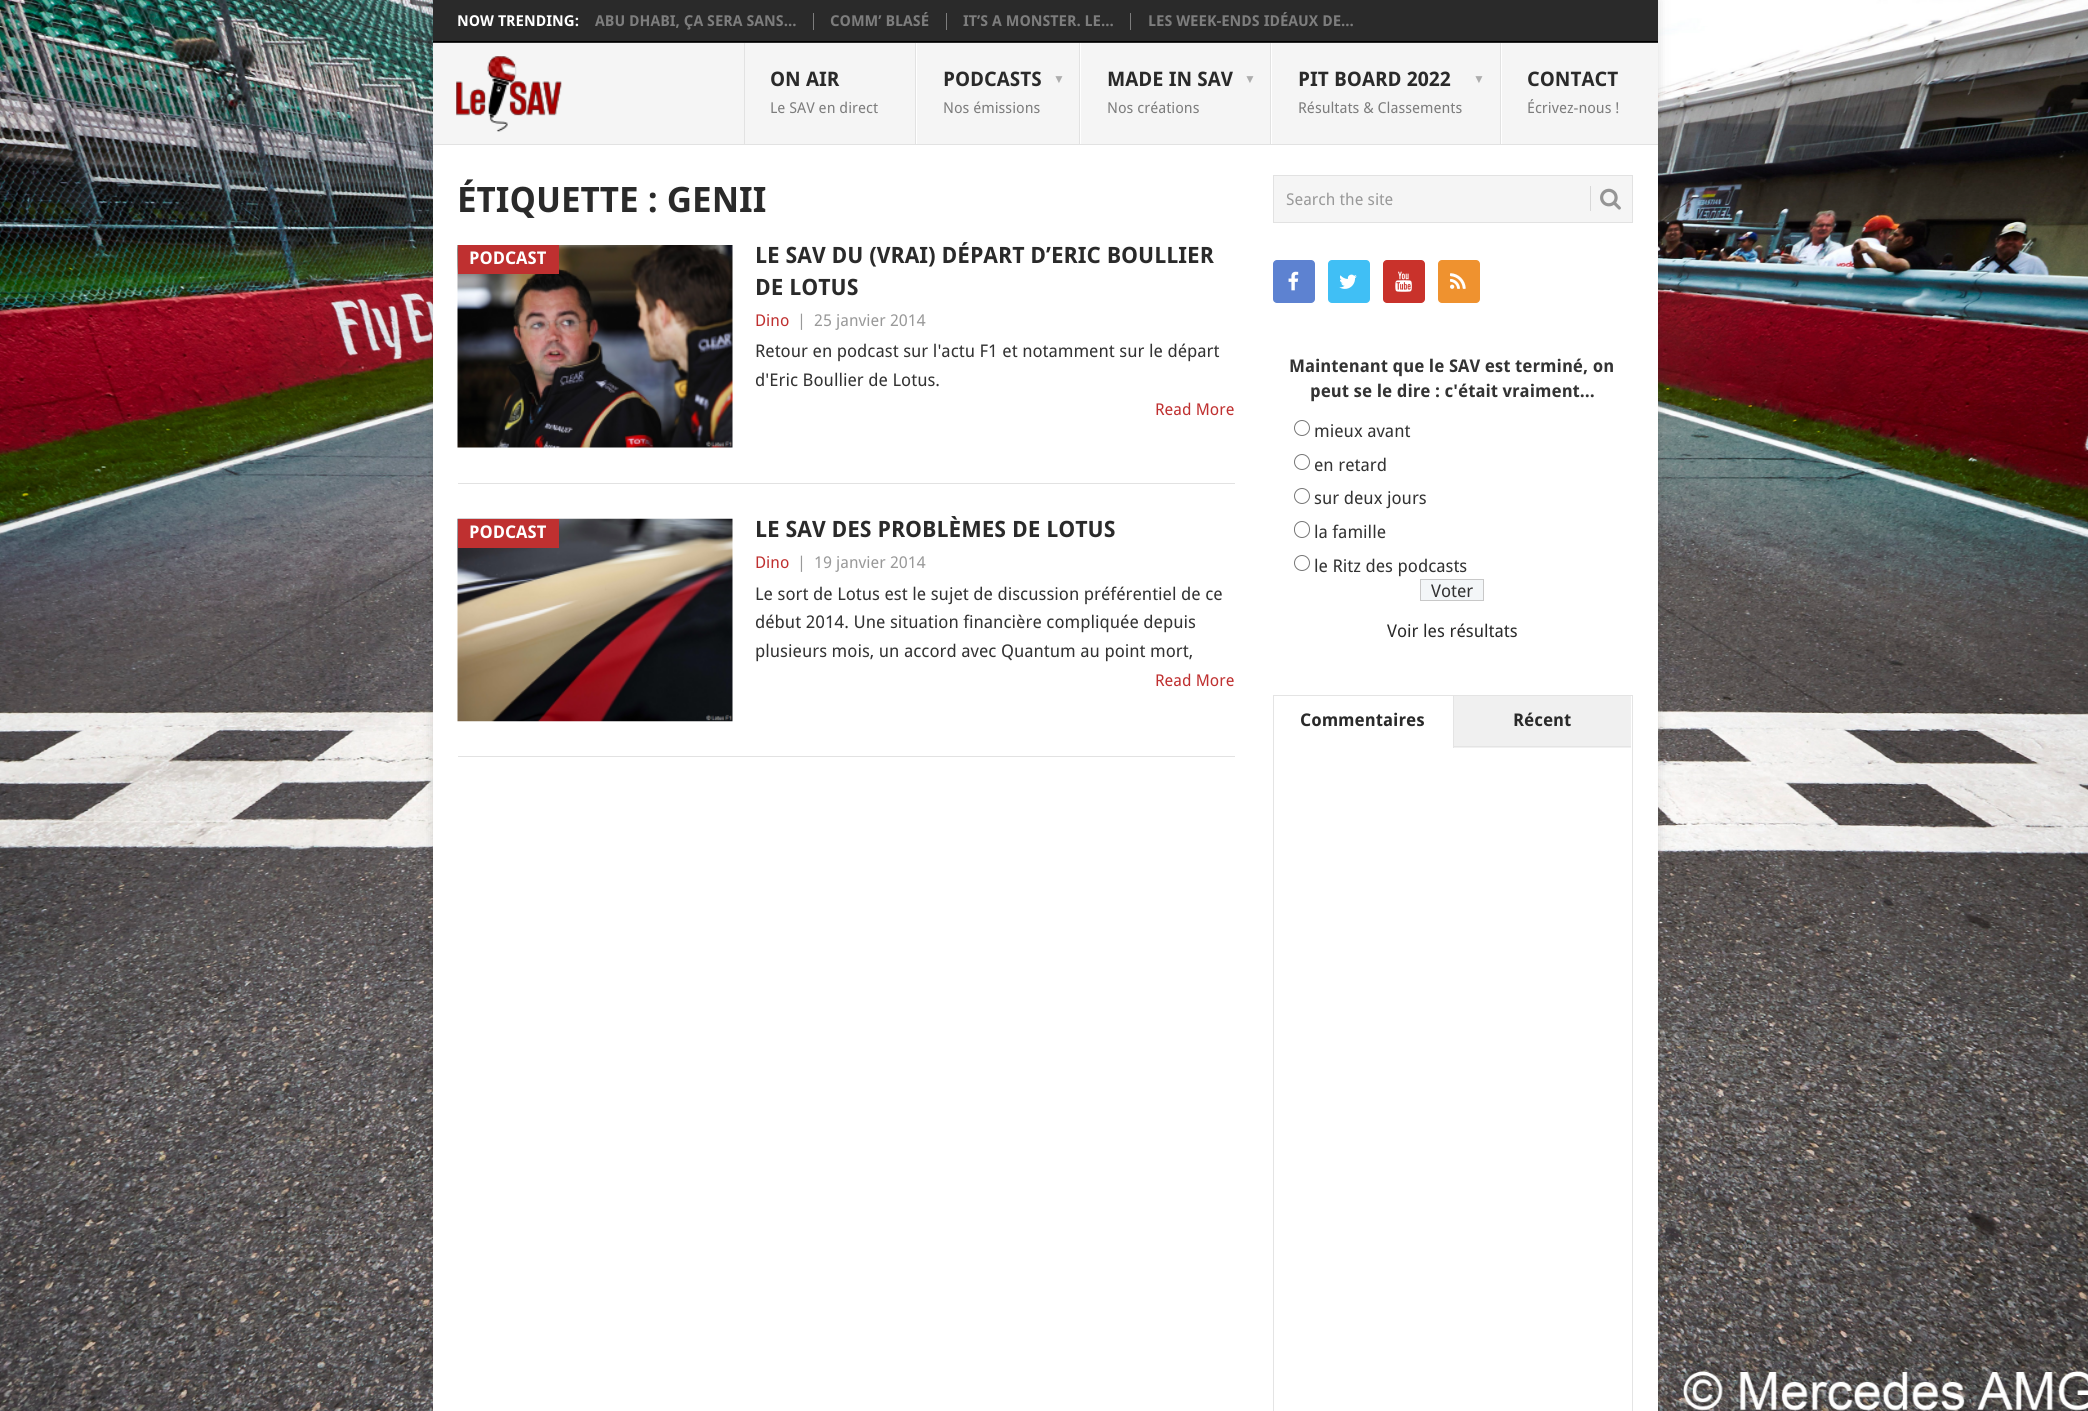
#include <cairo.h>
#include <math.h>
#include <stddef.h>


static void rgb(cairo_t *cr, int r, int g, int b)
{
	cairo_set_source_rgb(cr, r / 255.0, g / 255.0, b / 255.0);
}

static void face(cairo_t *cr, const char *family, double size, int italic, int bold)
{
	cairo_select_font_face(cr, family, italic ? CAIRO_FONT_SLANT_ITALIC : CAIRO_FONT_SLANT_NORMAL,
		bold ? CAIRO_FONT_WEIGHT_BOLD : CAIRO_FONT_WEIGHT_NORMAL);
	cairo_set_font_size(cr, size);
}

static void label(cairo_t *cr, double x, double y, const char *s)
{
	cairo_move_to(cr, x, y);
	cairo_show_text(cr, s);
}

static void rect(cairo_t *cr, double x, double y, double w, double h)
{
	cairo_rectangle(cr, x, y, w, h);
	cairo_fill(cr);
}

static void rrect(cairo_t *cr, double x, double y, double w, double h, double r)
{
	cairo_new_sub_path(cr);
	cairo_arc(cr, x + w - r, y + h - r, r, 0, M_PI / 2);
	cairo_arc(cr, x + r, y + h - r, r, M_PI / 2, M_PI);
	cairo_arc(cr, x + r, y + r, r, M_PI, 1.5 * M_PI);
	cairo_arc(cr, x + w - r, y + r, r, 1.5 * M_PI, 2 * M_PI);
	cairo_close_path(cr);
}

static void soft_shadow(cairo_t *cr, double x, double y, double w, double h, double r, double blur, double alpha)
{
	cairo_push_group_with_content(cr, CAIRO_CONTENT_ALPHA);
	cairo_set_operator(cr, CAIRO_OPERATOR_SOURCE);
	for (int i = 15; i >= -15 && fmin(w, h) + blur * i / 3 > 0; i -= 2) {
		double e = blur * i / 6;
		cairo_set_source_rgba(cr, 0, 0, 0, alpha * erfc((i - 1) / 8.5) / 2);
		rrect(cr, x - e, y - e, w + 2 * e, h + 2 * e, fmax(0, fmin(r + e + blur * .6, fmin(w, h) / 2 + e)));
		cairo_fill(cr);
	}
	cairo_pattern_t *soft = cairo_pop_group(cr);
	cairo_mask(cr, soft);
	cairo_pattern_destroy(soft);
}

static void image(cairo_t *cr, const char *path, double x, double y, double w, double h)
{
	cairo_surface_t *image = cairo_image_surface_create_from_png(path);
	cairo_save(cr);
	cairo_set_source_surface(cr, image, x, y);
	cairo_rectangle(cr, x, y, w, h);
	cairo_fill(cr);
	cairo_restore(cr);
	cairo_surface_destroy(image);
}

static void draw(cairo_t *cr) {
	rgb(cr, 255, 255, 255);
	cairo_paint(cr);
	image(cr, "image0.png", 0, 0, 2088, 1411);
	rgb(cr, 50, 50, 50);
	soft_shadow(cr, 433, 0, 1225, 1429, 0, 6, 0.17);
	rgb(cr, 255, 255, 255);
	rect(cr, 433, 145, 1225, 1266);
	rgb(cr, 42, 42, 42);
	rect(cr, 433, 0, 1225, 43);
	rgb(cr, 0, 0, 0);
	rect(cr, 433, 41, 1225, 1);
	face(cr, "Droid Sans", 15, 0, 1);
	rgb(cr, 255, 255, 255);
	label(cr, 457, 26, "NOW TRENDING:");
	rgb(cr, 125, 125, 125);
	rect(cr, 813, 13, 1, 17);
	label(cr, 595, 26, "ABU DHABI, ÇA SERA SANS...");
	rect(cr, 946, 13, 1, 17);
	label(cr, 830, 26, "COMM’ BLASÉ");
	rect(cr, 1130, 13, 1, 17);
	label(cr, 963, 26, "IT’S A MONSTER. LE...");
	label(cr, 1148, 26, "LES WEEK-ENDS IDÉAUX DE...");
	rgb(cr, 245, 245, 245);
	rect(cr, 433, 43, 1225, 101);
	image(cr, "image1.png", 456, 56, 106, 76);
	rgb(cr, 226, 226, 226);
	rect(cr, 915, 43, 1, 102);
	rect(cr, 744, 43, 1, 102);
	face(cr, "Droid Sans", 20, 0, 1);
	rgb(cr, 42, 42, 42);
	label(cr, 770, 86, "ON AIR");
	face(cr, "Droid Sans", 15, 0, 0);
	rgb(cr, 125, 125, 125);
	label(cr, 770, 113, "Le SAV en direct");
	rgb(cr, 226, 226, 226);
	rect(cr, 1079, 43, 1, 102);
	rgb(cr, 255, 255, 255);
	rect(cr, 916, 43, 1, 102);
	face(cr, "Droid Sans", 20, 0, 1);
	rgb(cr, 42, 42, 42);
	label(cr, 943, 86, "PODCASTS");
	face(cr, "Liberation Sans", 12, 0, 1);
	rgb(cr, 173, 173, 173);
	label(cr, 1053, 83, "▼");
	face(cr, "Droid Sans", 15, 0, 0);
	rgb(cr, 125, 125, 125);
	label(cr, 943, 113, "Nos émissions");
	rgb(cr, 226, 226, 226);
	rect(cr, 1270, 43, 1, 102);
	rgb(cr, 255, 255, 255);
	rect(cr, 1080, 43, 1, 102);
	face(cr, "Droid Sans", 20, 0, 1);
	rgb(cr, 42, 42, 42);
	label(cr, 1107, 86, "MADE IN SAV");
	face(cr, "Liberation Sans", 12, 0, 1);
	rgb(cr, 173, 173, 173);
	label(cr, 1244, 83, "▼");
	face(cr, "Droid Sans", 15, 0, 0);
	rgb(cr, 125, 125, 125);
	label(cr, 1107, 113, "Nos créations");
	rgb(cr, 226, 226, 226);
	rect(cr, 1500, 43, 1, 102);
	rgb(cr, 255, 255, 255);
	rect(cr, 1271, 43, 1, 102);
	face(cr, "Droid Sans", 20, 0, 1);
	rgb(cr, 42, 42, 42);
	label(cr, 1298, 86, "PIT BOARD 2022");
	face(cr, "Liberation Sans", 12, 0, 1);
	rgb(cr, 173, 173, 173);
	label(cr, 1473, 83, "▼");
	face(cr, "Droid Sans", 15, 0, 0);
	rgb(cr, 125, 125, 125);
	label(cr, 1298, 113, "Résultats & Classements");
	rgb(cr, 255, 255, 255);
	rect(cr, 1501, 43, 1, 102);
	face(cr, "Droid Sans", 20, 0, 1);
	rgb(cr, 42, 42, 42);
	label(cr, 1527, 86, "CONTACT");
	face(cr, "Droid Sans", 15, 0, 0);
	rgb(cr, 125, 125, 125);
	label(cr, 1527, 113, "Écrivez-nous !");
	rgb(cr, 226, 226, 226);
	rect(cr, 433, 144, 1225, 1);
	face(cr, "Droid Sans", 35, 0, 1);
	rgb(cr, 42, 42, 42);
	label(cr, 457, 212, "ÉTIQUETTE : GENII");
	rgb(cr, 226, 226, 226);
	rect(cr, 458, 483, 777, 1);
	image(cr, "image2.png", 457, 245, 276, 203);
	rgb(cr, 191, 48, 48);
	rect(cr, 458, 245, 101, 29);
	face(cr, "Droid Sans", 17.5, 0, 1);
	rgb(cr, 255, 255, 255);
	label(cr, 469, 264, "PODCAST");
	face(cr, "Droid Sans", 22.5, 0, 1);
	rgb(cr, 42, 42, 42);
	label(cr, 755, 263, "LE SAV DU (VRAI) DÉPART D’ERIC BOULLIER");
	label(cr, 755, 295, "DE LOTUS");
	face(cr, "Droid Sans", 16.25, 0, 0);
	rgb(cr, 191, 48, 48);
	label(cr, 755, 326, "Dino");
	rgb(cr, 153, 153, 153);
	label(cr, 797, 326, "|");
	label(cr, 814, 326, "25 janvier 2014");
	face(cr, "Droid Sans", 17.5, 0, 0);
	rgb(cr, 51, 51, 51);
	label(cr, 755, 357, "Retour en podcast sur l'actu F1 et notamment sur le départ");
	label(cr, 755, 386, "d'Eric Boullier de Lotus.");
	face(cr, "Droid Sans", 16.25, 0, 0);
	rgb(cr, 191, 48, 48);
	label(cr, 1155, 415, "Read More");
	rgb(cr, 226, 226, 226);
	rect(cr, 458, 756, 777, 1);
	image(cr, "image3.png", 457, 518, 276, 204);
	rgb(cr, 191, 48, 48);
	rect(cr, 458, 519, 101, 29);
	face(cr, "Droid Sans", 17.5, 0, 1);
	rgb(cr, 255, 255, 255);
	label(cr, 469, 538, "PODCAST");
	face(cr, "Droid Sans", 22.5, 0, 1);
	rgb(cr, 42, 42, 42);
	label(cr, 755, 537, "LE SAV DES PROBLÈMES DE LOTUS");
	face(cr, "Droid Sans", 16.25, 0, 0);
	rgb(cr, 191, 48, 48);
	label(cr, 755, 568, "Dino");
	rgb(cr, 153, 153, 153);
	label(cr, 797, 568, "|");
	label(cr, 814, 568, "19 janvier 2014");
	face(cr, "Droid Sans", 17.5, 0, 0);
	rgb(cr, 51, 51, 51);
	label(cr, 755, 600, "Le sort de Lotus est le sujet de discussion préférentiel de ce");
	label(cr, 755, 628, "début 2014. Une situation financière compliquée depuis");
	label(cr, 755, 657, "plusieurs mois, un accord avec Quantum au point mort,");
	face(cr, "Droid Sans", 16.25, 0, 0);
	rgb(cr, 191, 48, 48);
	label(cr, 1155, 686, "Read More");
	rgb(cr, 245, 245, 245);
	cairo_rectangle(cr, 1273.5, 175.5, 359, 47);
	cairo_fill_preserve(cr);
	rgb(cr, 226, 226, 226);
	cairo_set_line_width(cr, 1);
	cairo_stroke(cr);
	rgb(cr, 153, 153, 153);
	label(cr, 1286, 205, "Search the site");
	rgb(cr, 216, 216, 216);
	rect(cr, 1590, 186, 1, 25);
	image(cr, "image4.png", 1600, 188, 21, 22);
	rgb(cr, 93, 130, 209);
	rrect(cr, 1273, 260, 42, 43, 4);
	cairo_fill(cr);
	image(cr, "image5.png", 1288, 271, 11, 20);
	rgb(cr, 64, 191, 245);
	rrect(cr, 1328, 260, 42, 43, 4);
	cairo_fill(cr);
	image(cr, "image6.png", 1339, 274, 18, 15);
	rgb(cr, 201, 50, 43);
	rrect(cr, 1383, 260, 42, 43, 4);
	cairo_fill(cr);
	image(cr, "image7.png", 1395, 271, 17, 21);
	rgb(cr, 239, 146, 47);
	rrect(cr, 1438, 260, 42, 43, 4);
	cairo_fill(cr);
	image(cr, "image8.png", 1450, 273, 16, 16);
	face(cr, "Droid Sans", 17.5, 0, 1);
	rgb(cr, 51, 51, 51);
	label(cr, 1289, 372, "Maintenant que le SAV est terminé, on");
	label(cr, 1310, 397, "peut se le dire : c'était vraiment...");
	cairo_new_path(cr);
	cairo_arc(cr, 1302, 428, 7.5, 0, 2 * M_PI);
	rgb(cr, 118, 118, 118);
	cairo_stroke(cr);
	face(cr, "Droid Sans", 17.5, 0, 0);
	rgb(cr, 51, 51, 51);
	label(cr, 1314, 437, "mieux avant");
	cairo_new_path(cr);
	cairo_arc(cr, 1302, 462, 7.5, 0, 2 * M_PI);
	rgb(cr, 118, 118, 118);
	cairo_stroke(cr);
	rgb(cr, 51, 51, 51);
	label(cr, 1314, 471, "en retard");
	cairo_new_path(cr);
	cairo_arc(cr, 1302, 496, 7.5, 0, 2 * M_PI);
	rgb(cr, 118, 118, 118);
	cairo_stroke(cr);
	rgb(cr, 51, 51, 51);
	label(cr, 1314, 504, "sur deux jours");
	rrect(cr, 1294.5, 521.5, 15, 16, 7.5);
	rgb(cr, 118, 118, 118);
	cairo_stroke(cr);
	rgb(cr, 51, 51, 51);
	label(cr, 1314, 538, "la famille");
	cairo_new_path(cr);
	cairo_arc(cr, 1302, 563, 7.5, 0, 2 * M_PI);
	rgb(cr, 118, 118, 118);
	cairo_stroke(cr);
	rgb(cr, 51, 51, 51);
	label(cr, 1314, 572, "le Ritz des podcasts");
	rgb(cr, 243, 246, 248);
	cairo_rectangle(cr, 1420.5, 579.5, 63, 21);
	cairo_fill_preserve(cr);
	rgb(cr, 200, 200, 200);
	cairo_stroke(cr);
	rgb(cr, 51, 51, 51);
	label(cr, 1431, 597, "Voter");
	rgb(cr, 42, 42, 42);
	label(cr, 1387, 637, "Voir les résultats");
	cairo_rectangle(cr, 1273.5, 695.5, 359, 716);
	rgb(cr, 228, 228, 228);
	cairo_stroke(cr);
	face(cr, "Droid Sans", 17.5, 0, 1);
	rgb(cr, 42, 42, 42);
	label(cr, 1300, 726, "Commentaires");
	rgb(cr, 240, 240, 240);
	rect(cr, 1454, 696, 177, 52);
	rgb(cr, 228, 228, 228);
	rect(cr, 1453, 746, 178, 1);
	rect(cr, 1453, 696, 1, 52);
	rgb(cr, 42, 42, 42);
	label(cr, 1513, 726, "Récent");
}

int main(void) {
	cairo_surface_t *surface = cairo_image_surface_create(CAIRO_FORMAT_RGB24, 2088, 1411);
	cairo_t *cr = cairo_create(surface);
	cairo_font_options_t *options = cairo_font_options_create();
	cairo_font_options_set_hint_metrics(options, CAIRO_HINT_METRICS_OFF);
	cairo_font_options_set_hint_style(options, CAIRO_HINT_STYLE_NONE);
	cairo_set_font_options(cr, options);
	cairo_set_miter_limit(cr, 4);
	draw(cr);
	cairo_surface_write_to_png(surface, "render.png");
	cairo_font_options_destroy(options);
	cairo_destroy(cr);
	cairo_surface_destroy(surface);
	return 0;
}
